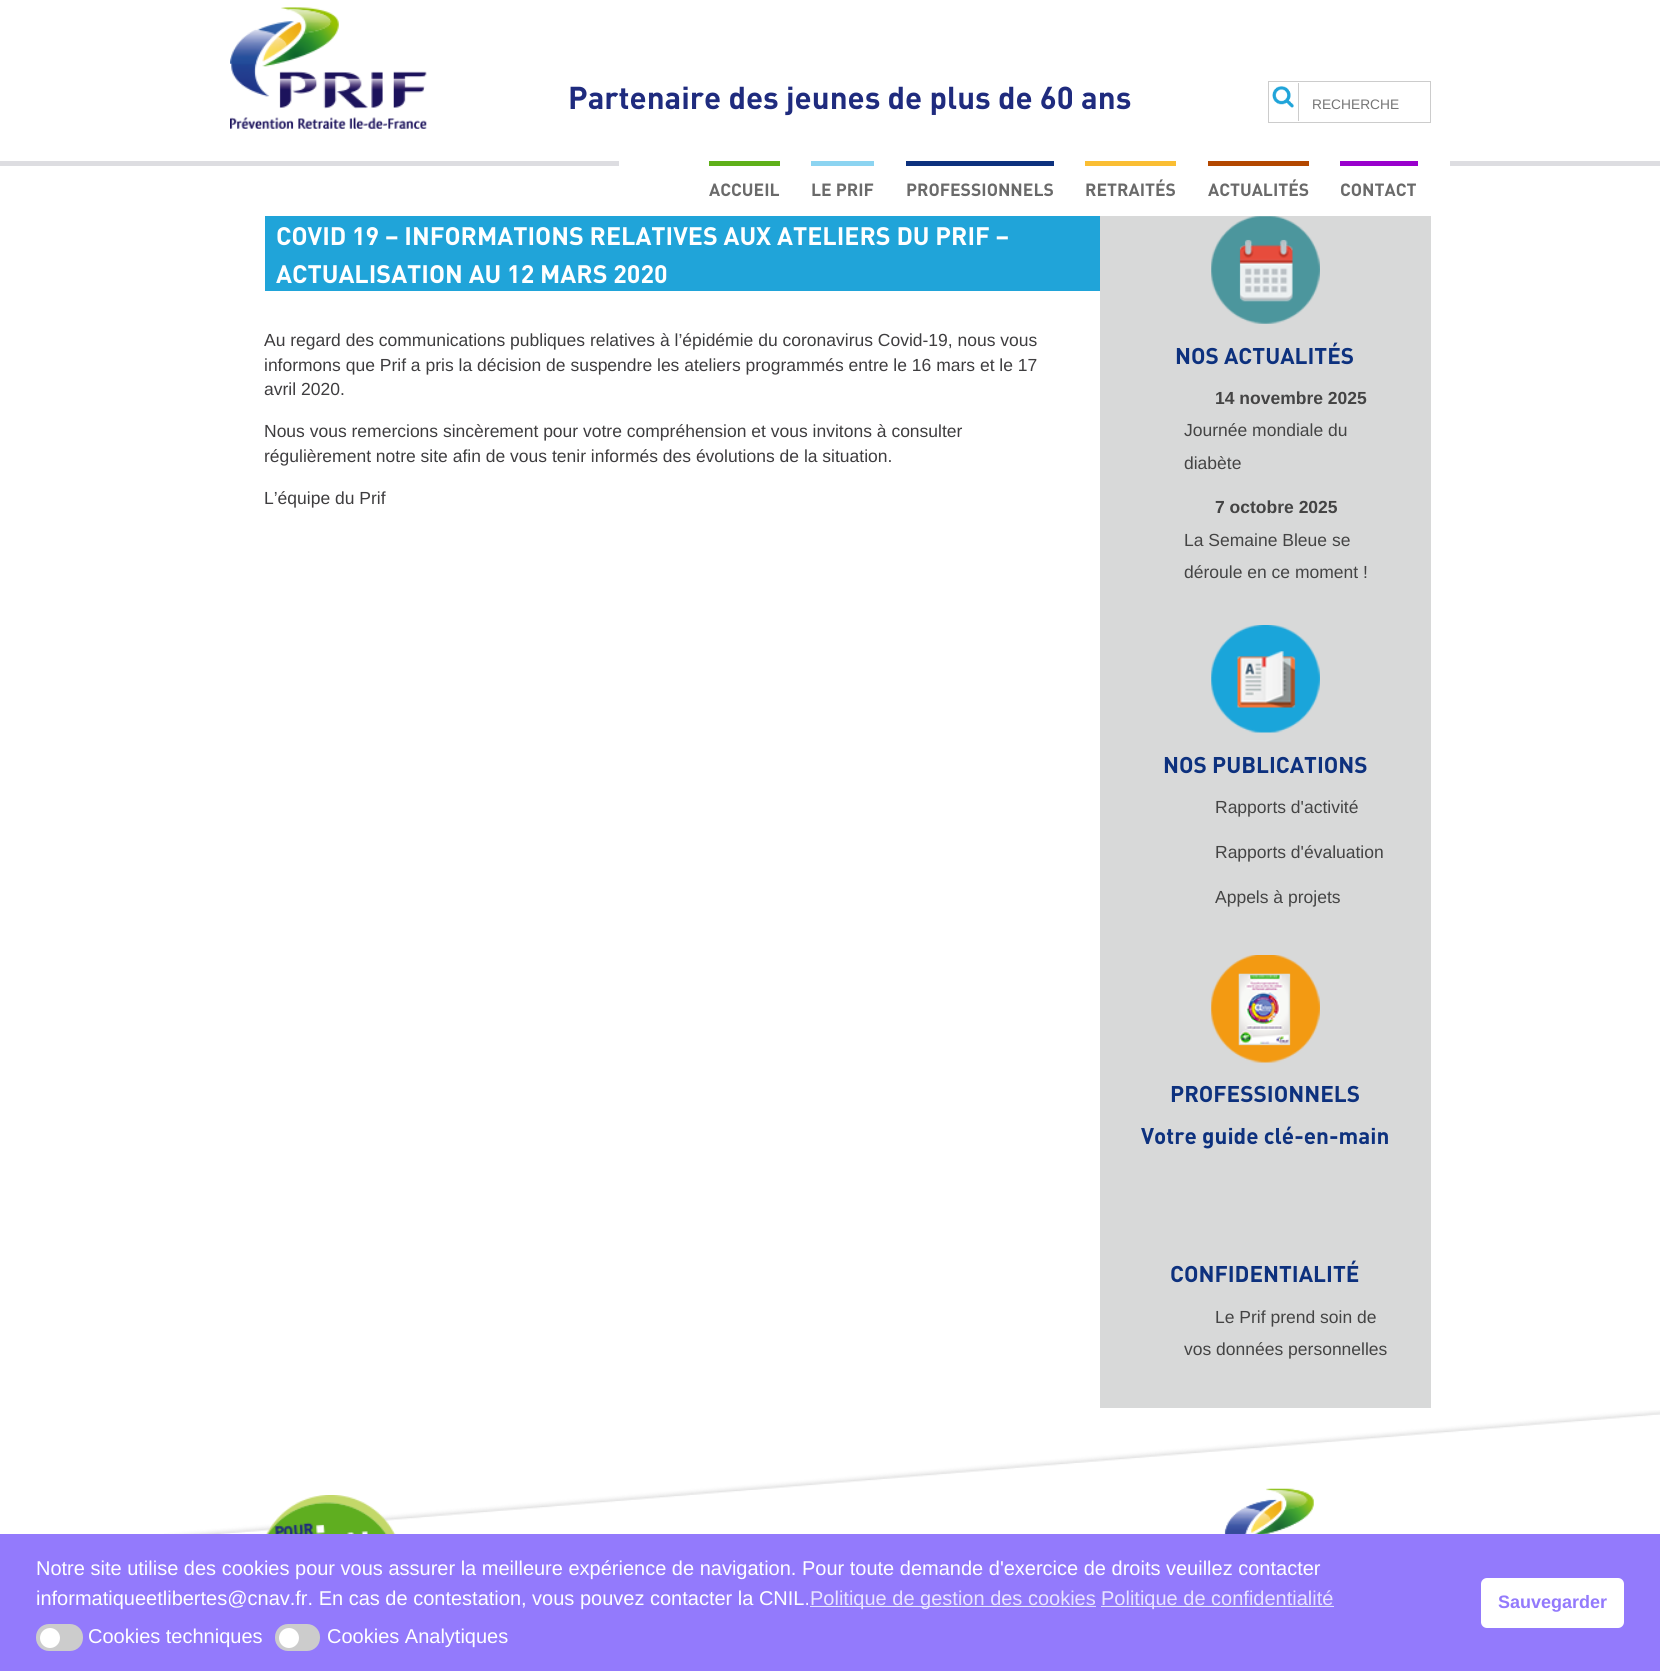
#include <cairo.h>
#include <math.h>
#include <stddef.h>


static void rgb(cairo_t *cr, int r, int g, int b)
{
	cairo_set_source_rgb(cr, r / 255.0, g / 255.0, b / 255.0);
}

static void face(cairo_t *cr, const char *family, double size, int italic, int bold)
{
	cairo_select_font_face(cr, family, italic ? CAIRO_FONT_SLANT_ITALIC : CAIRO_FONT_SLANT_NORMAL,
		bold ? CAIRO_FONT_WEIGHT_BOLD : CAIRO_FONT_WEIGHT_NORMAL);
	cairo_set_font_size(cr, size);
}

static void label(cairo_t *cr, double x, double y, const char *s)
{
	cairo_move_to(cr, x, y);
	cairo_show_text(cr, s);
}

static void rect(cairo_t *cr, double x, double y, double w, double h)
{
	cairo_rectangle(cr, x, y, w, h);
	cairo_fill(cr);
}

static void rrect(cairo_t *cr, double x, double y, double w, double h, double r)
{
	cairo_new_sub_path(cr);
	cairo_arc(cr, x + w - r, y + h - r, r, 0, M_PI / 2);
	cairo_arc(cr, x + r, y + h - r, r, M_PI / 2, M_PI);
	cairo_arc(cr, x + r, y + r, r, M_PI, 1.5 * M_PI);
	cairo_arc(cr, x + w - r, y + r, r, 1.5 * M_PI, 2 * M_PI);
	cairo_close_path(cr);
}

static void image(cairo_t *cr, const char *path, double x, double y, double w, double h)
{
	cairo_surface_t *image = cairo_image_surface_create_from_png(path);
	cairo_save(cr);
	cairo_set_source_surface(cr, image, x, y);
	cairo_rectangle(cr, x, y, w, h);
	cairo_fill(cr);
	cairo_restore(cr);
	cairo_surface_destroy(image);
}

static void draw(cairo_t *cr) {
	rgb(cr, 255, 255, 255);
	cairo_paint(cr);
	image(cr, "image0.png", 230, 7, 197, 102);
	image(cr, "image1.png", 230, 117, 197, 12);
	face(cr, "DIN", 31.25, 0, 1);
	rgb(cr, 31, 43, 126);
	label(cr, 568, 109, "Partenaire des jeunes de plus de 60 ans");
	cairo_rectangle(cr, 1268.5, 81.5, 162, 41);
	rgb(cr, 204, 204, 204);
	cairo_set_line_width(cr, 1);
	cairo_stroke(cr);
	image(cr, "image2.png", 1272, 86, 22, 22);
	rect(cr, 1298, 83, 1, 38);
	face(cr, "Liberation Sans", 13.75, 0, 0);
	rgb(cr, 117, 117, 117);
	label(cr, 1312, 109, "RECHERCHE");
	rgb(cr, 221, 221, 225);
	rect(cr, 0, 161, 619, 5);
	rect(cr, 1450, 161, 210, 5);
	rgb(cr, 95, 176, 26);
	rect(cr, 709, 161, 71, 5);
	face(cr, "DIN", 17.5, 0, 1);
	rgb(cr, 106, 106, 106);
	label(cr, 709, 196, "ACCUEIL");
	rgb(cr, 140, 212, 241);
	rect(cr, 811, 161, 63, 5);
	rgb(cr, 106, 106, 106);
	label(cr, 811, 196, "LE PRIF");
	rgb(cr, 13, 49, 126);
	rect(cr, 906, 161, 148, 5);
	rgb(cr, 106, 106, 106);
	label(cr, 906, 196, "PROFESSIONNELS");
	rgb(cr, 250, 190, 51);
	rect(cr, 1085, 161, 91, 5);
	rgb(cr, 106, 106, 106);
	label(cr, 1085, 196, "RETRAITÉS");
	rgb(cr, 179, 72, 0);
	rect(cr, 1208, 161, 101, 5);
	rgb(cr, 106, 106, 106);
	label(cr, 1208, 196, "ACTUALITÉS");
	rgb(cr, 153, 0, 204);
	rect(cr, 1340, 161, 78, 5);
	rgb(cr, 106, 106, 106);
	label(cr, 1340, 196, "CONTACT");
	rgb(cr, 32, 164, 217);
	rect(cr, 265, 216, 835, 75);
	face(cr, "DIN", 25, 0, 1);
	rgb(cr, 255, 255, 255);
	label(cr, 276, 245, "COVID 19 – INFORMATIONS RELATIVES AUX ATELIERS DU PRIF –");
	label(cr, 276, 283, "ACTUALISATION AU 12 MARS 2020");
	face(cr, "Liberation Sans", 17.5, 0, 0);
	rgb(cr, 62, 61, 63);
	label(cr, 264, 346, "Au regard des communications publiques relatives à l’épidémie du coronavirus Covid-19, nous vous");
	label(cr, 264, 371, "informons que Prif a pris la décision de suspendre les ateliers programmés entre le 16 mars et le 17");
	label(cr, 264, 395, "avril 2020.");
	label(cr, 264, 437, "Nous vous remercions sincèrement pour votre compréhension et vous invitons à consulter");
	label(cr, 264, 462, "régulièrement notre site afin de vous tenir informés des évolutions de la situation.");
	label(cr, 264, 504, "L’équipe du Prif");
	rgb(cr, 216, 217, 217);
	rect(cr, 1100, 216, 331, 1192);
	image(cr, "image3.png", 1211, 216, 109, 108);
	face(cr, "DIN", 22.5, 0, 1);
	rgb(cr, 13, 49, 126);
	label(cr, 1175, 364, "NOS ACTUALITÉS");
	face(cr, "Liberation Sans", 17.5, 0, 1);
	rgb(cr, 68, 68, 68);
	label(cr, 1215, 404, "14 novembre 2025");
	face(cr, "Liberation Sans", 17.5, 0, 0);
	label(cr, 1184, 436, "Journée mondiale du");
	label(cr, 1184, 469, "diabète");
	face(cr, "Liberation Sans", 17.5, 0, 1);
	label(cr, 1215, 513, "7 octobre 2025");
	face(cr, "Liberation Sans", 17.5, 0, 0);
	label(cr, 1184, 546, "La Semaine Bleue se");
	label(cr, 1184, 578, "déroule en ce moment !");
	image(cr, "image4.png", 1211, 625, 109, 108);
	face(cr, "DIN", 22.5, 0, 1);
	rgb(cr, 13, 49, 126);
	label(cr, 1163, 773, "NOS PUBLICATIONS");
	face(cr, "Liberation Sans", 17.5, 0, 0);
	rgb(cr, 68, 68, 68);
	label(cr, 1215, 813, "Rapports d'activité");
	label(cr, 1215, 858, "Rapports d'évaluation");
	label(cr, 1215, 903, "Appels à projets");
	image(cr, "image5.png", 1211, 955, 109, 108);
	face(cr, "DIN", 22.5, 0, 1);
	rgb(cr, 13, 49, 126);
	label(cr, 1170, 1102, "PROFESSIONNELS");
	label(cr, 1141, 1144, "Votre guide clé-en-main");
	label(cr, 1170, 1282, "CONFIDENTIALITÉ");
	face(cr, "Liberation Sans", 17.5, 0, 0);
	rgb(cr, 68, 68, 68);
	label(cr, 1215, 1323, "Le Prif prend soin de");
	label(cr, 1184, 1355, "vos données personnelles");
	image(cr, "image6.png", 164, 1410, 1496, 124);
	image(cr, "image7.png", 266, 1495, 130, 39);
	image(cr, "image8.png", 1224, 1488, 90, 46);
	rgb(cr, 147, 122, 252);
	rect(cr, 0, 1534, 1660, 137);
	face(cr, "Liberation Sans", 20, 0, 0);
	rgb(cr, 255, 255, 255);
	label(cr, 36, 1575, "Notre site utilise des cookies pour vous assurer la meilleure expérience de navigation. Pour toute demande d'exercice de droits veuillez contacter");
	label(cr, 36, 1605, "informatiqueetlibertes@cnav.fr. En cas de contestation, vous pouvez contacter la CNIL.");
	rgb(cr, 233, 228, 254);
	rect(cr, 810, 1606, 286, 1);
	label(cr, 810, 1605, "Politique de gestion des cookies");
	rect(cr, 1101, 1606, 233, 1);
	label(cr, 1101, 1605, "Politique de confidentialité");
	rgb(cr, 204, 204, 204);
	rrect(cr, 36, 1624, 47, 27, 13);
	cairo_fill(cr);
	rgb(cr, 255, 255, 255);
	cairo_arc(cr, 50, 1638, 10, 0, 2 * M_PI);
	cairo_fill(cr);
	label(cr, 88, 1643, "Cookies techniques");
	rgb(cr, 204, 204, 204);
	rrect(cr, 275, 1624, 45, 27, 13);
	cairo_fill(cr);
	rgb(cr, 255, 255, 255);
	cairo_arc(cr, 289, 1638, 10, 0, 2 * M_PI);
	cairo_fill(cr);
	label(cr, 327, 1643, "Cookies Analytiques");
	rrect(cr, 1481, 1578, 143, 50, 6);
	cairo_fill(cr);
	face(cr, "Liberation Sans", 18, 0, 1);
	rgb(cr, 147, 122, 252);
	label(cr, 1498, 1608, "Sauvegarder");
}

int main(void) {
	cairo_surface_t *surface = cairo_image_surface_create(CAIRO_FORMAT_RGB24, 1660, 1671);
	cairo_t *cr = cairo_create(surface);
	cairo_font_options_t *options = cairo_font_options_create();
	cairo_font_options_set_hint_metrics(options, CAIRO_HINT_METRICS_OFF);
	cairo_font_options_set_hint_style(options, CAIRO_HINT_STYLE_NONE);
	cairo_set_font_options(cr, options);
	cairo_set_miter_limit(cr, 4);
	draw(cr);
	cairo_surface_write_to_png(surface, "render.png");
	cairo_font_options_destroy(options);
	cairo_destroy(cr);
	cairo_surface_destroy(surface);
	return 0;
}
